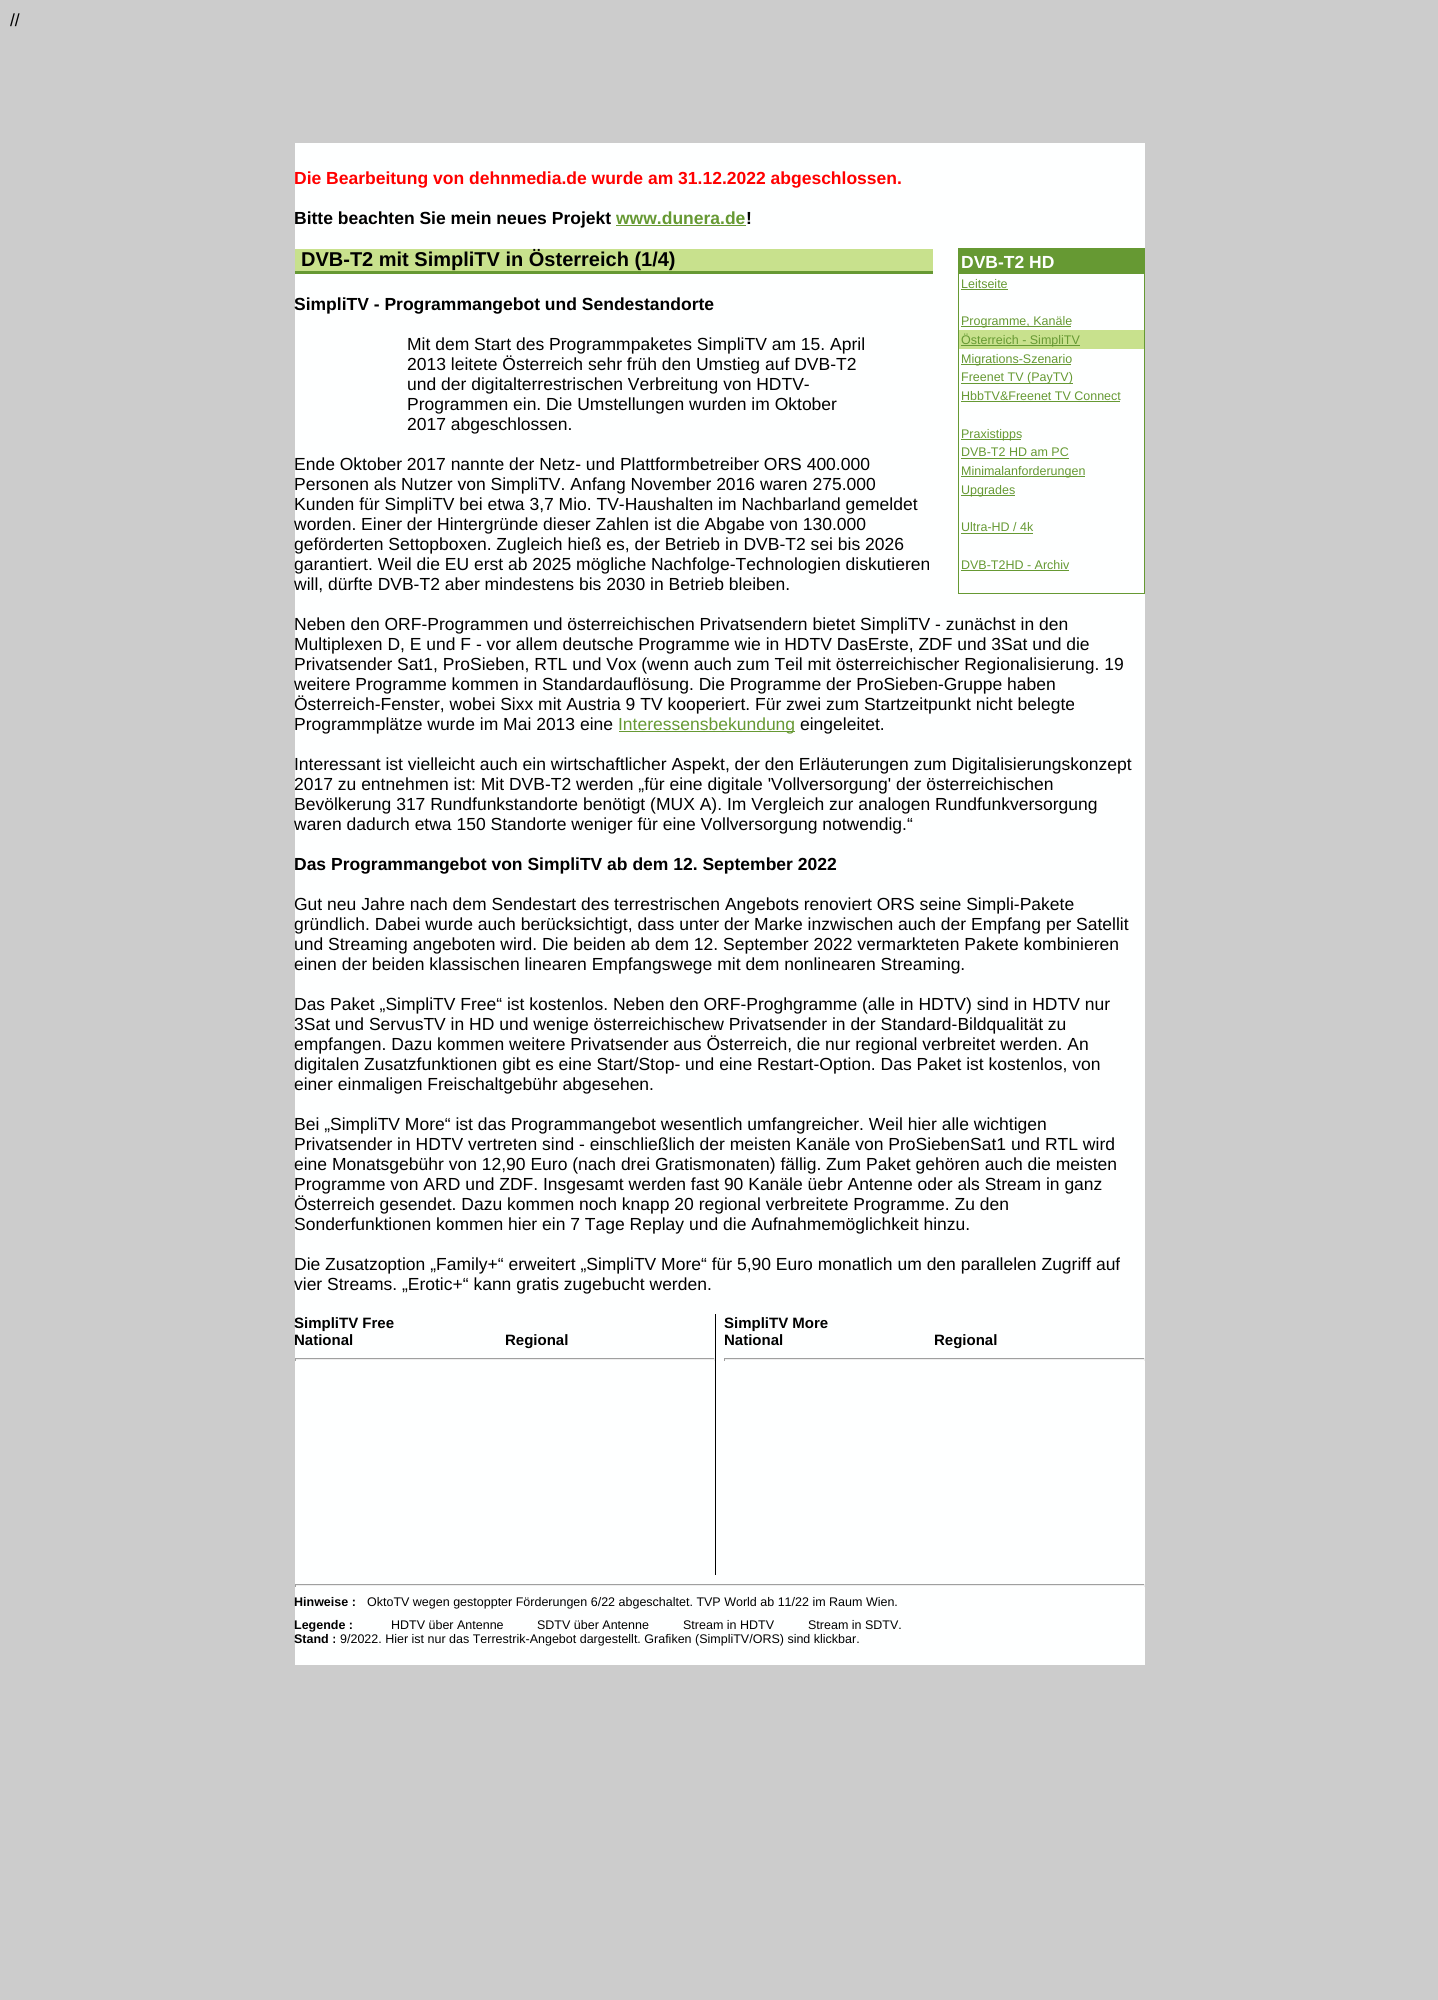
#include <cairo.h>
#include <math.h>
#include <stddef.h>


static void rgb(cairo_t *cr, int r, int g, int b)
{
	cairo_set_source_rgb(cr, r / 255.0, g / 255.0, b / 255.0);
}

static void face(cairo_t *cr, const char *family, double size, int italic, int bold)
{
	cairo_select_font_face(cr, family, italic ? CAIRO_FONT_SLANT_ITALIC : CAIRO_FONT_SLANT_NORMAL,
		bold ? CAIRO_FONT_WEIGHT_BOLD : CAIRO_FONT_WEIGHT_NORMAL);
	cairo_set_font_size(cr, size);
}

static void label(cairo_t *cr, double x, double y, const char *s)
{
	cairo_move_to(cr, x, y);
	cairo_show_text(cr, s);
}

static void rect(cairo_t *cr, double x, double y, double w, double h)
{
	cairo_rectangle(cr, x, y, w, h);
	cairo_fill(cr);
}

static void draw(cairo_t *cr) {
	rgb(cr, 204, 204, 204);
	cairo_paint(cr);
	face(cr, "Liberation Sans", 17.5, 0, 0);
	rgb(cr, 0, 0, 0);
	label(cr, 10, 26, "//");
	rgb(cr, 254, 255, 255);
	rect(cr, 295, 143, 850, 1522);
	face(cr, "Liberation Sans", 17.5, 0, 1);
	rgb(cr, 255, 0, 0);
	label(cr, 294, 184, "Die Bearbeitung von dehnmedia.de wurde am 31.12.2022 abgeschlossen.");
	rgb(cr, 0, 0, 0);
	label(cr, 294, 224, "Bitte beachten Sie mein neues Projekt");
	rgb(cr, 102, 153, 51);
	label(cr, 616, 224, "www.dunera.de");
	rect(cr, 616, 225, 130, 1);
	rgb(cr, 0, 0, 0);
	label(cr, 746, 224, "!");
	rgb(cr, 200, 225, 141);
	rect(cr, 295, 249, 638, 22);
	face(cr, "Liberation Sans", 20, 0, 1);
	rgb(cr, 0, 0, 0);
	label(cr, 301, 266, "DVB-T2 mit SimpliTV in Österreich (1/4)");
	rgb(cr, 102, 153, 51);
	rect(cr, 295, 271, 638, 3);
	cairo_rectangle(cr, 958.5, 248.5, 186, 345);
	cairo_set_line_width(cr, 1);
	cairo_stroke(cr);
	rect(cr, 959, 249, 185, 25);
	face(cr, "Liberation Sans", 17.5, 0, 1);
	rgb(cr, 254, 255, 255);
	label(cr, 961, 268, "DVB-T2 HD");
	face(cr, "Liberation Sans", 12.5, 0, 0);
	rgb(cr, 102, 153, 51);
	label(cr, 961, 288, "Leitseite");
	rect(cr, 961, 289, 47, 1);
	rect(cr, 961, 326, 110, 1);
	label(cr, 961, 325, "Programme, Kanäle");
	rgb(cr, 200, 225, 141);
	rect(cr, 959, 330, 185, 19);
	rgb(cr, 102, 153, 51);
	rect(cr, 961, 345, 119, 1);
	label(cr, 961, 344, "Österreich - SimpliTV");
	rect(cr, 961, 364, 110, 1);
	label(cr, 961, 363, "Migrations-Szenario");
	rect(cr, 961, 383, 112, 1);
	label(cr, 961, 381, "Freenet TV (PayTV)");
	label(cr, 961, 400, "HbbTV&Freenet TV Connect");
	rect(cr, 961, 401, 159, 1);
	rect(cr, 961, 439, 60, 1);
	label(cr, 961, 438, "Praxistipps");
	label(cr, 961, 456, "DVB-T2 HD am PC");
	rect(cr, 961, 458, 108, 1);
	rect(cr, 961, 476, 124, 1);
	label(cr, 961, 475, "Minimalanforderungen");
	rect(cr, 961, 495, 54, 1);
	label(cr, 961, 494, "Upgrades");
	label(cr, 961, 531, "Ultra-HD / 4k");
	rect(cr, 961, 533, 72, 1);
	label(cr, 961, 569, "DVB-T2HD - Archiv");
	rect(cr, 961, 570, 108, 1);
	face(cr, "Liberation Sans", 17.5, 0, 1);
	rgb(cr, 0, 0, 0);
	label(cr, 294, 310, "SimpliTV - Programmangebot und Sendestandorte");
	face(cr, "Liberation Sans", 17.5, 0, 0);
	label(cr, 407, 350, "Mit dem Start des Programmpaketes SimpliTV am 15. April");
	label(cr, 407, 370, "2013 leitete Österreich sehr früh den Umstieg auf DVB-T2");
	label(cr, 407, 390, "und der digitalterrestrischen Verbreitung von HDTV-");
	label(cr, 407, 410, "Programmen ein. Die Umstellungen wurden im Oktober");
	label(cr, 407, 430, "2017 abgeschlossen.");
	label(cr, 294, 470, "Ende Oktober 2017 nannte der Netz- und Plattformbetreiber ORS 400.000");
	label(cr, 294, 490, "Personen als Nutzer von SimpliTV. Anfang November 2016 waren 275.000");
	label(cr, 294, 510, "Kunden für SimpliTV bei etwa 3,7 Mio. TV-Haushalten im Nachbarland gemeldet");
	label(cr, 294, 530, "worden. Einer der Hintergründe dieser Zahlen ist die Abgabe von 130.000");
	label(cr, 294, 550, "geförderten Settopboxen. Zugleich hieß es, der Betrieb in DVB-T2 sei bis 2026");
	label(cr, 294, 570, "garantiert. Weil die EU erst ab 2025 mögliche Nachfolge-Technologien diskutieren");
	label(cr, 294, 590, "will, dürfte DVB-T2 aber mindestens bis 2030 in Betrieb bleiben.");
	label(cr, 294, 630, "Neben den ORF-Programmen und österreichischen Privatsendern bietet SimpliTV - zunächst in den");
	label(cr, 294, 650, "Multiplexen D, E und F - vor allem deutsche Programme wie in HDTV DasErste, ZDF und 3Sat und die");
	label(cr, 294, 670, "Privatsender Sat1, ProSieben, RTL und Vox (wenn auch zum Teil mit österreichischer Regionalisierung. 19");
	label(cr, 294, 690, "weitere Programme kommen in Standardauflösung. Die Programme der ProSieben-Gruppe haben");
	label(cr, 294, 710, "Österreich-Fenster, wobei Sixx mit Austria 9 TV kooperiert. Für zwei zum Startzeitpunkt nicht belegte");
	label(cr, 294, 730, "Programmplätze wurde im Mai 2013 eine");
	rgb(cr, 102, 153, 51);
	rect(cr, 619, 731, 176, 1);
	label(cr, 618, 730, "Interessensbekundung");
	rgb(cr, 0, 0, 0);
	label(cr, 800, 730, "eingeleitet.");
	label(cr, 294, 770, "Interessant ist vielleicht auch ein wirtschaftlicher Aspekt, der den Erläuterungen zum Digitalisierungskonzept");
	label(cr, 294, 790, "2017 zu entnehmen ist: Mit DVB-T2 werden „für eine digitale 'Vollversorgung' der österreichischen");
	label(cr, 294, 810, "Bevölkerung 317 Rundfunkstandorte benötigt (MUX A). Im Vergleich zur analogen Rundfunkversorgung");
	label(cr, 294, 830, "waren dadurch etwa 150 Standorte weniger für eine Vollversorgung notwendig.“");
	face(cr, "Liberation Sans", 17.5, 0, 1);
	label(cr, 294, 870, "Das Programmangebot von SimpliTV ab dem 12. September 2022");
	face(cr, "Liberation Sans", 17.5, 0, 0);
	label(cr, 294, 910, "Gut neu Jahre nach dem Sendestart des terrestrischen Angebots renoviert ORS seine Simpli-Pakete");
	label(cr, 294, 930, "gründlich. Dabei wurde auch berücksichtigt, dass unter der Marke inzwischen auch der Empfang per Satellit");
	label(cr, 294, 950, "und Streaming angeboten wird. Die beiden ab dem 12. September 2022 vermarkteten Pakete kombinieren");
	label(cr, 294, 970, "einen der beiden klassischen linearen Empfangswege mit dem nonlinearen Streaming.");
	label(cr, 294, 1010, "Das Paket „SimpliTV Free“ ist kostenlos. Neben den ORF-Proghgramme (alle in HDTV) sind in HDTV nur");
	label(cr, 294, 1030, "3Sat und ServusTV in HD und wenige österreichischew Privatsender in der Standard-Bildqualität zu");
	label(cr, 294, 1050, "empfangen. Dazu kommen weitere Privatsender aus Österreich, die nur regional verbreitet werden. An");
	label(cr, 294, 1070, "digitalen Zusatzfunktionen gibt es eine Start/Stop- und eine Restart-Option. Das Paket ist kostenlos, von");
	label(cr, 294, 1090, "einer einmaligen Freischaltgebühr abgesehen.");
	label(cr, 294, 1130, "Bei „SimpliTV More“ ist das Programmangebot wesentlich umfangreicher. Weil hier alle wichtigen");
	label(cr, 294, 1150, "Privatsender in HDTV vertreten sind - einschließlich der meisten Kanäle von ProSiebenSat1 und RTL wird");
	label(cr, 294, 1170, "eine Monatsgebühr von 12,90 Euro (nach drei Gratismonaten) fällig. Zum Paket gehören auch die meisten");
	label(cr, 294, 1190, "Programme von ARD und ZDF. Insgesamt werden fast 90 Kanäle üebr Antenne oder als Stream in ganz");
	label(cr, 294, 1210, "Österreich gesendet. Dazu kommen noch knapp 20 regional verbreitete Programme. Zu den");
	label(cr, 294, 1230, "Sonderfunktionen kommen hier ein 7 Tage Replay und die Aufnahmemöglichkeit hinzu.");
	label(cr, 294, 1270, "Die Zusatzoption „Family+“ erweitert „SimpliTV More“ für 5,90 Euro monatlich um den parallelen Zugriff auf");
	label(cr, 294, 1290, "vier Streams. „Erotic+“ kann gratis zugebucht werden.");
	face(cr, "Liberation Sans", 15, 0, 1);
	label(cr, 294, 1328, "SimpliTV Free");
	rect(cr, 715, 1314, 1, 261);
	label(cr, 724, 1328, "SimpliTV More");
	label(cr, 294, 1345, "National");
	label(cr, 505, 1345, "Regional");
	label(cr, 724, 1345, "National");
	label(cr, 934, 1345, "Regional");
	rgb(cr, 159, 159, 159);
	rect(cr, 295, 1358, 420, 1);
	rgb(cr, 238, 238, 238);
	rect(cr, 714, 1358, 1, 3);
	rect(cr, 295, 1359, 420, 1);
	rgb(cr, 159, 159, 159);
	rect(cr, 295, 1358, 1, 3);
	rect(cr, 724, 1358, 421, 1);
	rgb(cr, 238, 238, 238);
	rect(cr, 1144, 1358, 1, 3);
	rect(cr, 724, 1359, 421, 1);
	rgb(cr, 159, 159, 159);
	rect(cr, 724, 1358, 1, 3);
	rect(cr, 295, 1584, 850, 1);
	rgb(cr, 238, 238, 238);
	rect(cr, 1144, 1584, 1, 3);
	rect(cr, 295, 1585, 850, 1);
	rgb(cr, 159, 159, 159);
	rect(cr, 295, 1584, 1, 3);
	face(cr, "Liberation Sans", 12.5, 0, 1);
	rgb(cr, 0, 0, 0);
	label(cr, 294, 1606, "Hinweise :");
	face(cr, "Liberation Sans", 12.5, 0, 0);
	label(cr, 367, 1606, "OktoTV wegen gestoppter Förderungen 6/22 abgeschaltet. TVP World ab 11/22 im Raum Wien.");
	face(cr, "Liberation Sans", 12.5, 0, 1);
	label(cr, 294, 1629, "Legende :");
	face(cr, "Liberation Sans", 12.5, 0, 0);
	label(cr, 391, 1629, "HDTV über Antenne");
	label(cr, 537, 1629, "SDTV über Antenne");
	label(cr, 683, 1629, "Stream in HDTV");
	label(cr, 808, 1629, "Stream in SDTV.");
	face(cr, "Liberation Sans", 12.5, 0, 1);
	label(cr, 294, 1643, "Stand :");
	face(cr, "Liberation Sans", 12.5, 0, 0);
	label(cr, 340, 1643, "9/2022. Hier ist nur das Terrestrik-Angebot dargestellt. Grafiken (SimpliTV/ORS) sind klickbar.");
}

int main(void) {
	cairo_surface_t *surface = cairo_image_surface_create(CAIRO_FORMAT_RGB24, 1438, 2000);
	cairo_t *cr = cairo_create(surface);
	cairo_font_options_t *options = cairo_font_options_create();
	cairo_font_options_set_hint_metrics(options, CAIRO_HINT_METRICS_OFF);
	cairo_font_options_set_hint_style(options, CAIRO_HINT_STYLE_NONE);
	cairo_set_font_options(cr, options);
	cairo_set_miter_limit(cr, 4);
	draw(cr);
	cairo_surface_write_to_png(surface, "render.png");
	cairo_font_options_destroy(options);
	cairo_destroy(cr);
	cairo_surface_destroy(surface);
	return 0;
}
